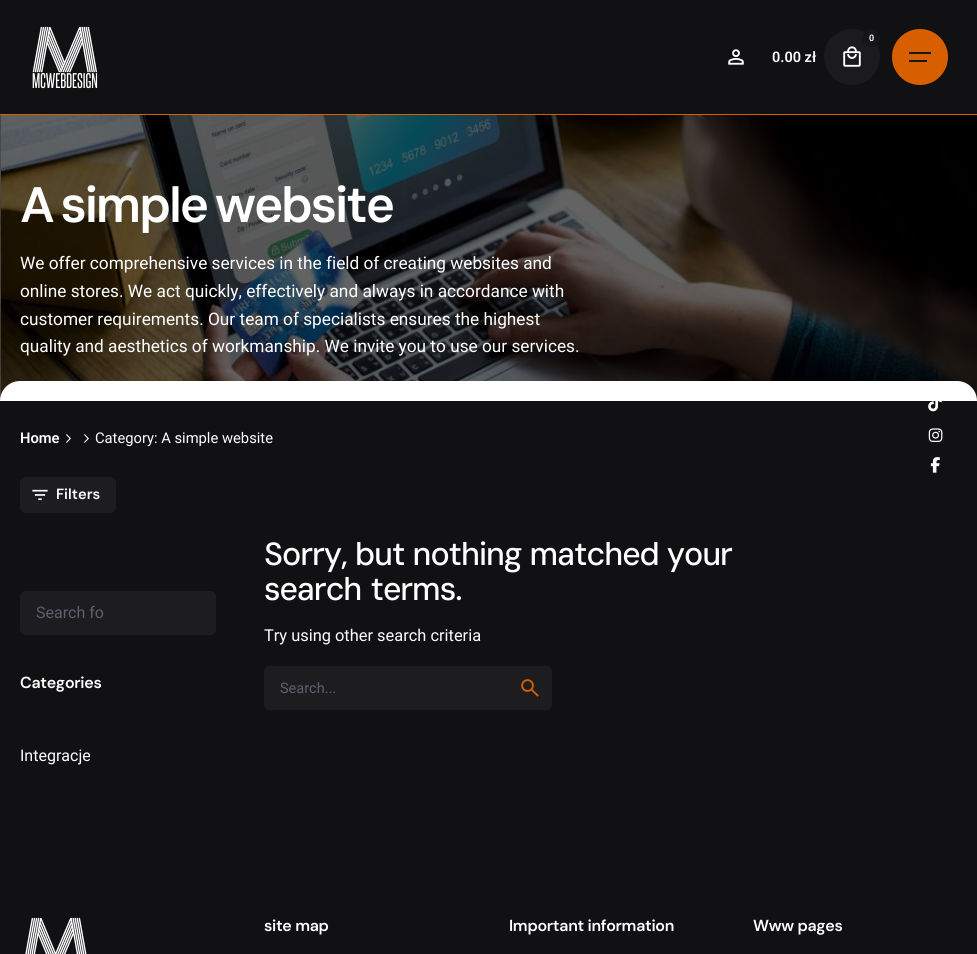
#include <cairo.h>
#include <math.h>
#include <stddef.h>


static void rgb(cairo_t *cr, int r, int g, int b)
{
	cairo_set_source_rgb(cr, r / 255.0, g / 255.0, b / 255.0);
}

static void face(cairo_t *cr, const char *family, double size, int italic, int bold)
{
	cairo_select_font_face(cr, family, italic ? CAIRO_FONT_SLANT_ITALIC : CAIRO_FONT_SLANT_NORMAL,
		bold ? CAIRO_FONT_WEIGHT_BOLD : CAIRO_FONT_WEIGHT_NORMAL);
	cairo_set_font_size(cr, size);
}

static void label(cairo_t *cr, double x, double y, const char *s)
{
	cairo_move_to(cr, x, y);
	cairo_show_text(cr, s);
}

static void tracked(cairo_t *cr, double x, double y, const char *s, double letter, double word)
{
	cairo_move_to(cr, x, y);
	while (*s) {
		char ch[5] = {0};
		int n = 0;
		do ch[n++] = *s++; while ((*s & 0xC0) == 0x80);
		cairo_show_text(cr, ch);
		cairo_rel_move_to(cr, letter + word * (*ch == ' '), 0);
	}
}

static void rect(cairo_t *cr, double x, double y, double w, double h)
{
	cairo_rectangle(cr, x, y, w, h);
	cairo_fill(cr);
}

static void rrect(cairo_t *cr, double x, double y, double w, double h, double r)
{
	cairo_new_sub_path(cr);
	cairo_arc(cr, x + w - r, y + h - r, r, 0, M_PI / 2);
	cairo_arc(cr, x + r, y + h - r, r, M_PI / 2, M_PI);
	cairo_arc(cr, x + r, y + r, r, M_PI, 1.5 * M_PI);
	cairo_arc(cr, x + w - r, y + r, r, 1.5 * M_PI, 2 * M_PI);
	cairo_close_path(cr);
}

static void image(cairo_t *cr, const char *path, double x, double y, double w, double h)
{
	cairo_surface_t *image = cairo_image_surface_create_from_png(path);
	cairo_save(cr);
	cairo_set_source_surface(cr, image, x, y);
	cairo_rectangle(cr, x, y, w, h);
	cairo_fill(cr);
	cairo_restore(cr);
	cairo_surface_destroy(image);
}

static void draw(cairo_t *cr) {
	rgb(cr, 17, 16, 19);
	cairo_paint(cr);
	rgb(cr, 215, 95, 0);
	rect(cr, 0, 114, 977, 1);
	image(cr, "image0.png", 32, 26, 66, 63);
	image(cr, "image1.png", 728, 49, 16, 16);
	rgb(cr, 27, 26, 28);
	cairo_arc(cr, 852, 57, 28, 0, 2 * M_PI);
	cairo_fill(cr);
	image(cr, "image2.png", 843, 46, 18, 21);
	rgb(cr, 22, 21, 24);
	cairo_arc(cr, 871, 38, 9, 0, 2 * M_PI);
	cairo_fill(cr);
	face(cr, "Roboto SemiBold", 9, 0, 0);
	rgb(cr, 255, 255, 255);
	label(cr, 869, 41, "0");
	face(cr, "Roboto SemiBold", 14.5, 0, 0);
	label(cr, 772, 62, "0.00 zł");
	rgb(cr, 215, 95, 0);
	cairo_new_path(cr);
	cairo_arc(cr, 920, 57, 28, 0, 2 * M_PI);
	cairo_fill(cr);
	rgb(cr, 22, 21, 24);
	rect(cr, 909, 52, 22, 2);
	rect(cr, 909, 60, 18, 2);
	image(cr, "image3.png", 0, 115, 977, 286);
	face(cr, "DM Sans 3 SemiBold", 49.75, 0, 0);
	rgb(cr, 255, 255, 255);
	tracked(cr, 20, 222, "A simple website", -2.25, -2);
	face(cr, "Roboto", 17.25, 0, 0);
	label(cr, 20, 269, "We offer comprehensive services in the field of creating websites and");
	label(cr, 20, 297, "online stores. We act quickly, effectively and always in accordance with");
	label(cr, 20, 325, "customer requirements. Our team of specialists ensures the highest");
	label(cr, 20, 352, "quality and aesthetics of workmanship. We invite you to use our services.");
	cairo_new_path(cr);
	cairo_move_to(cr, 20, 381);
	cairo_line_to(cr, 957, 381);
	cairo_curve_to(cr, 968, 381, 977, 390, 977, 401);
	cairo_line_to(cr, 0, 401);
	cairo_curve_to(cr, 0, 390, 9, 381, 20, 381);
	cairo_close_path(cr);
	cairo_fill(cr);
	face(cr, "Roboto SemiBold", 14.75, 0, 0);
	label(cr, 20, 443, "Home");
	image(cr, "image4.png", 66, 434, 5, 9);
	image(cr, "image4.png", 84, 434, 5, 9);
	face(cr, "Roboto", 14.75, 0, 0);
	label(cr, 95, 443, "Category: A simple website");
	rgb(cr, 29, 28, 31);
	rrect(cr, 20, 477, 96, 36, 6);
	cairo_fill(cr);
	image(cr, "image5.png", 32, 489, 16, 12);
	face(cr, "DM Sans SemiBold", 14.75, 0, 0);
	rgb(cr, 255, 255, 255);
	label(cr, 56, 499, "Filters");
	rgb(cr, 29, 28, 31);
	rrect(cr, 20, 591, 196, 44, 6);
	cairo_fill(cr);
	face(cr, "Roboto", 16, 0, 0);
	rgb(cr, 99, 93, 110);
	label(cr, 36, 618, "Search fo");
	face(cr, "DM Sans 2 SemiBold", 16, 0, 0);
	rgb(cr, 255, 255, 255);
	tracked(cr, 20, 688, "Categories", -0.3, 0);
	face(cr, "Roboto", 16, 0, 0);
	label(cr, 20, 761, "Integracje");
	face(cr, "DM Sans Medium", 32, 0, 0);
	tracked(cr, 264, 565, "Sorry, but nothing matched your", -1.1, 1);
	tracked(cr, 264, 600, "search terms.", -1.1, 2);
	face(cr, "Roboto", 16.4, 0, 0);
	label(cr, 264, 641, "Try using other search criteria");
	rgb(cr, 29, 28, 31);
	rrect(cr, 264, 666, 288, 44, 6);
	cairo_fill(cr);
	face(cr, "Roboto", 14.5, 0, 0);
	rgb(cr, 99, 93, 110);
	label(cr, 280, 693, "Search...");
	image(cr, "image6.png", 521, 679, 18, 18);
	image(cr, "image7.png", 928, 401, 14, 11);
	image(cr, "image8.png", 928, 428, 15, 14);
	image(cr, "image9.png", 930, 457, 10, 16);
	image(cr, "image10.png", 25, 917, 62, 37);
	face(cr, "DM Sans 2 SemiBold", 16, 0, 0);
	rgb(cr, 255, 255, 255);
	tracked(cr, 264, 931, "site map", -0.3, 0);
	tracked(cr, 509, 931, "Important information", -0.3, 0);
	tracked(cr, 753, 931, "Www pages", -0.3, 0);
}

int main(void) {
	cairo_surface_t *surface = cairo_image_surface_create(CAIRO_FORMAT_RGB24, 977, 954);
	cairo_t *cr = cairo_create(surface);
	cairo_font_options_t *options = cairo_font_options_create();
	cairo_font_options_set_hint_metrics(options, CAIRO_HINT_METRICS_OFF);
	cairo_font_options_set_hint_style(options, CAIRO_HINT_STYLE_NONE);
	cairo_set_font_options(cr, options);
	cairo_set_miter_limit(cr, 4);
	draw(cr);
	cairo_surface_write_to_png(surface, "render.png");
	cairo_font_options_destroy(options);
	cairo_destroy(cr);
	cairo_surface_destroy(surface);
	return 0;
}
